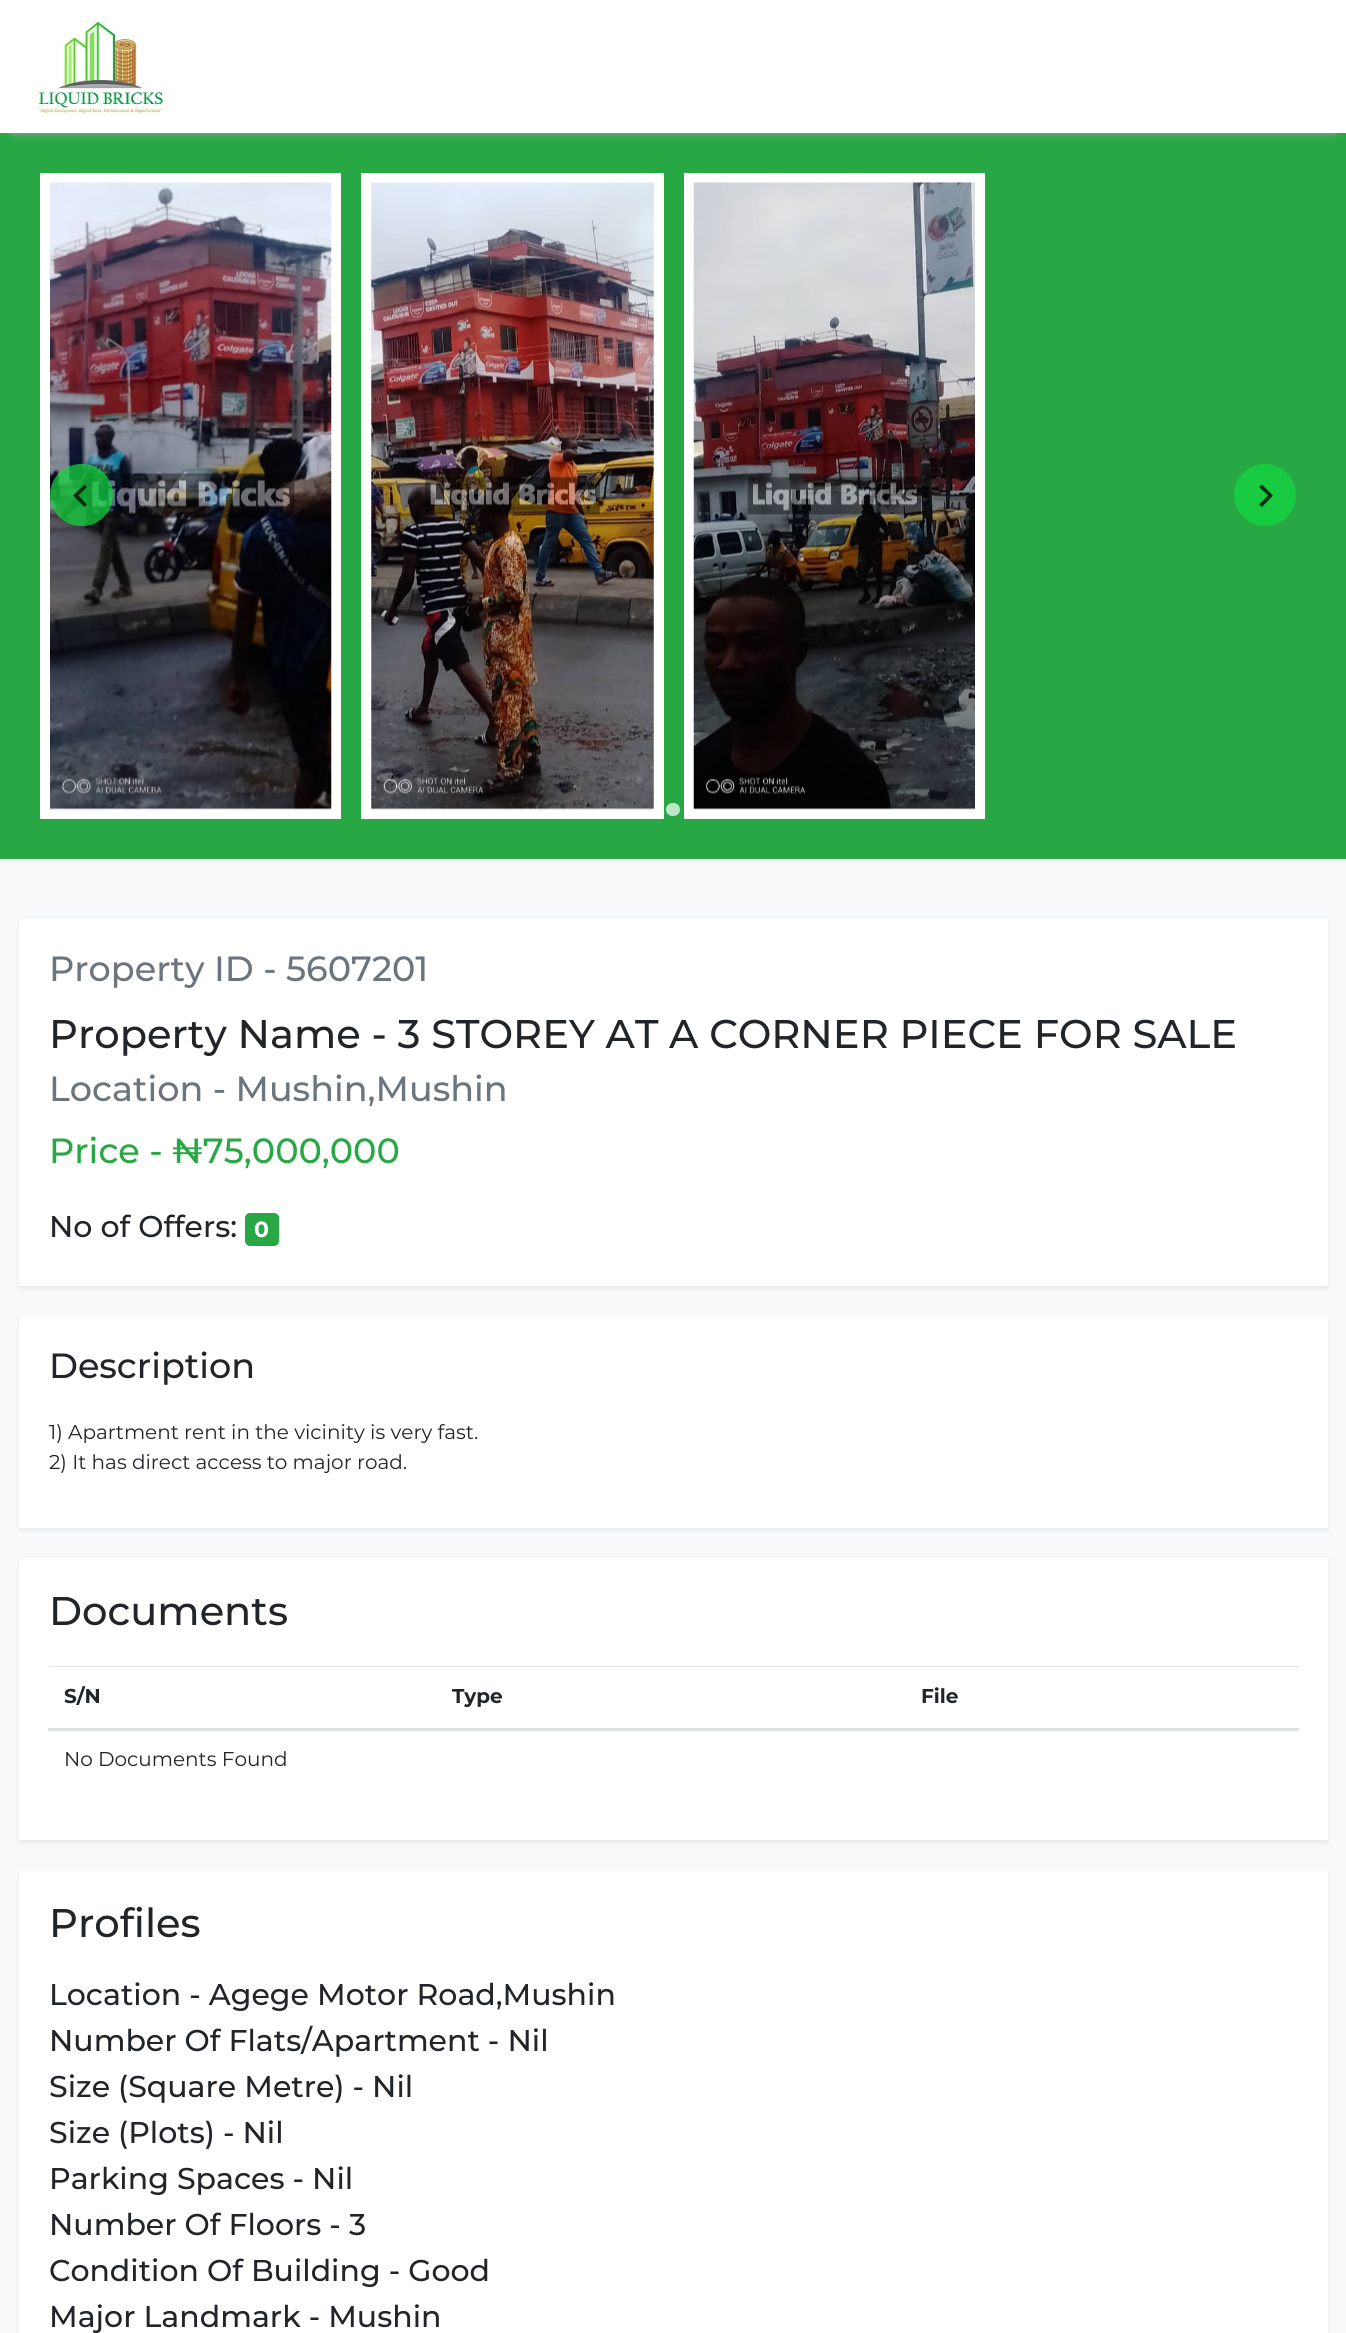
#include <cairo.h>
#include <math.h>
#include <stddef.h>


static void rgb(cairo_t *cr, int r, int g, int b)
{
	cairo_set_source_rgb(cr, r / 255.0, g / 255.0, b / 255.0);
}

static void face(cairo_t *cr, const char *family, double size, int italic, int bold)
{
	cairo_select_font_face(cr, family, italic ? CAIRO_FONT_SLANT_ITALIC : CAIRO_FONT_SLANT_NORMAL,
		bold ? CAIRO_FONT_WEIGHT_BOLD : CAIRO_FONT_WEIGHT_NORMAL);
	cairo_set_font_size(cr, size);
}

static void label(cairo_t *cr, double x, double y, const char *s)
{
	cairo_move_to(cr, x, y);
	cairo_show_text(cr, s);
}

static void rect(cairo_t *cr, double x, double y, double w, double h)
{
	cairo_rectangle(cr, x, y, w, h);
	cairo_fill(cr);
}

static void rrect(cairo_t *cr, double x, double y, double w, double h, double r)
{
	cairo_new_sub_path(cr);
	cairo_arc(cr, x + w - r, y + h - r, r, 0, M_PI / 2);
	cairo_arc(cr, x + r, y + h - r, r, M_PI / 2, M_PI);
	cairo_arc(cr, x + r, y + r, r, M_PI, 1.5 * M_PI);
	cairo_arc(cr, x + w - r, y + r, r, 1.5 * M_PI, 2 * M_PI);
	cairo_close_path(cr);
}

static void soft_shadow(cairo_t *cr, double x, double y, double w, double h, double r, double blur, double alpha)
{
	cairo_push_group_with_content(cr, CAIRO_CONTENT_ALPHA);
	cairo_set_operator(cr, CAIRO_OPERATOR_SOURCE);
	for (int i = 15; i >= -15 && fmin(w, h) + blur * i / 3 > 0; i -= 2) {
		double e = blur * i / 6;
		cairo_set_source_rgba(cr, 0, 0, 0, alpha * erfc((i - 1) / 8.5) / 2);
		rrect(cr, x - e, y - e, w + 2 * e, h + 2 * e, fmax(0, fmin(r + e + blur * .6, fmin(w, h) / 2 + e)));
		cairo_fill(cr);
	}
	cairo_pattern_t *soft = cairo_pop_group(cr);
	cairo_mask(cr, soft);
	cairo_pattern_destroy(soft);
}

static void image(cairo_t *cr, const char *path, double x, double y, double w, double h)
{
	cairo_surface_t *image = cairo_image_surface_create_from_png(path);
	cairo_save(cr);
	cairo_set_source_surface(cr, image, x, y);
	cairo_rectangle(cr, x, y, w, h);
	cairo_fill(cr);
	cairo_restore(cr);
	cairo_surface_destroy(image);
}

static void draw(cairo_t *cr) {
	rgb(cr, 248, 249, 250);
	cairo_paint(cr);
	rgb(cr, 0, 0, 0);
	soft_shadow(cr, 0, 135, 1346, 726, 0, 2.5, 0.07);
	rgb(cr, 40, 167, 69);
	rect(cr, 0, 133, 1346, 726);
	rgb(cr, 167, 167, 167);
	soft_shadow(cr, 13, 25, 1321, 108, 0, 4, 1);
	rgb(cr, 255, 255, 255);
	rect(cr, 0, 0, 1346, 133);
	image(cr, "image0.png", 30, 16, 140, 100);
	rect(cr, 40, 173, 301, 646);
	image(cr, "image1.png", 50, 182, 282, 628);
	rect(cr, 361, 173, 303, 646);
	image(cr, "image2.png", 371, 182, 283, 628);
	rect(cr, 684, 173, 301, 646);
	image(cr, "image3.png", 693, 182, 282, 628);
	cairo_set_source_rgba(cr, 0.075, 0.855, 0.243, 0.7);
	rrect(cr, 50, 464, 63, 62, 31);
	cairo_fill(cr);
	cairo_set_source_rgba(cr, 0, 0, 0, 0.7);
	cairo_new_path(cr);
	cairo_move_to(cr, 84.5, 484.5);
	cairo_line_to(cr, 87, 487);
	cairo_line_to(cr, 78.5, 495.5);
	cairo_line_to(cr, 87, 504.5);
	cairo_line_to(cr, 84.5, 507);
	cairo_line_to(cr, 73, 495.5);
	cairo_close_path(cr);
	cairo_fill(cr);
	rgb(cr, 25, 203, 64);
	cairo_arc(cr, 1265, 495, 31, 0, 2 * M_PI);
	cairo_fill(cr);
	rgb(cr, 12, 50, 21);
	cairo_new_path(cr);
	cairo_move_to(cr, 1262, 484.5);
	cairo_line_to(cr, 1259, 487);
	cairo_line_to(cr, 1268, 495.5);
	cairo_line_to(cr, 1259, 504.5);
	cairo_line_to(cr, 1262, 507);
	cairo_line_to(cr, 1273, 495.5);
	cairo_close_path(cr);
	cairo_fill(cr);
	rgb(cr, 191, 229, 199);
	rrect(cr, 666, 803, 14, 13, 6.5);
	cairo_fill(cr);
	rgb(cr, 0, 0, 0);
	soft_shadow(cr, 19, 921, 1309, 368, 0, 2.5, 0.07);
	rgb(cr, 255, 255, 255);
	rect(cr, 19, 919, 1309, 367);
	face(cr, "Montserrat Medium", 35, 0, 0);
	rgb(cr, 108, 117, 125);
	label(cr, 49, 981, "Property ID - 5607201");
	face(cr, "Montserrat Medium", 40, 0, 0);
	rgb(cr, 33, 37, 41);
	label(cr, 49, 1048, "Property Name - 3 STOREY AT A CORNER PIECE FOR SALE");
	face(cr, "Montserrat Medium", 35, 0, 0);
	rgb(cr, 108, 117, 125);
	label(cr, 49, 1101, "Location - Mushin,Mushin");
	rgb(cr, 40, 167, 69);
	label(cr, 49, 1163, "Price - ₦75,000,000");
	face(cr, "Montserrat Medium", 30, 0, 0);
	rgb(cr, 33, 37, 41);
	label(cr, 49, 1237, "No of Offers:");
	rgb(cr, 40, 167, 69);
	rrect(cr, 245, 1213, 34, 33, 5);
	cairo_fill(cr);
	face(cr, "Montserrat", 22, 0, 1);
	rgb(cr, 255, 255, 255);
	label(cr, 254, 1237, "0");
	rgb(cr, 0, 0, 0);
	soft_shadow(cr, 19, 1319, 1309, 211, 0, 2.5, 0.07);
	rgb(cr, 255, 255, 255);
	rect(cr, 19, 1316, 1309, 212);
	face(cr, "Montserrat Medium", 35, 0, 0);
	rgb(cr, 33, 37, 41);
	label(cr, 49, 1378, "Description");
	face(cr, "Montserrat", 20, 0, 0);
	label(cr, 49, 1439, "1) Apartment rent in the vicinity is very fast.");
	label(cr, 49, 1469, "2) It has direct access to major road.");
	rgb(cr, 0, 0, 0);
	soft_shadow(cr, 19, 1560, 1309, 283, 0, 2.5, 0.07);
	rgb(cr, 255, 255, 255);
	rect(cr, 19, 1558, 1309, 282);
	face(cr, "Montserrat Medium", 40, 0, 0);
	rgb(cr, 33, 37, 41);
	label(cr, 49, 1625, "Documents");
	face(cr, "Montserrat", 20, 0, 1);
	label(cr, 64, 1703, "S/N");
	label(cr, 452, 1703, "Type");
	rgb(cr, 222, 226, 230);
	rect(cr, 49, 1666, 1250, 1);
	rect(cr, 48, 1728, 1251, 3);
	rgb(cr, 33, 37, 41);
	label(cr, 921, 1703, "File");
	face(cr, "Montserrat", 20, 0, 0);
	label(cr, 64, 1766, "No Documents Found");
	rgb(cr, 0, 0, 0);
	soft_shadow(cr, 19, 1873, 1309, 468, 0, 2.5, 0.07);
	rgb(cr, 255, 255, 255);
	rect(cr, 19, 1870, 1309, 463);
	face(cr, "Montserrat Medium", 40, 0, 0);
	rgb(cr, 33, 37, 41);
	label(cr, 49, 1937, "Profiles");
	face(cr, "Montserrat Medium", 30, 0, 0);
	label(cr, 49, 2005, "Location - Agege Motor Road,Mushin");
	label(cr, 49, 2051, "Number Of Flats/Apartment - Nil");
	label(cr, 49, 2097, "Size (Square Metre) - Nil");
	label(cr, 49, 2143, "Size (Plots) - Nil");
	label(cr, 49, 2189, "Parking Spaces - Nil");
	label(cr, 49, 2235, "Number Of Floors - 3");
	label(cr, 49, 2281, "Condition Of Building - Good");
	label(cr, 49, 2327, "Major Landmark - Mushin");
}

int main(void) {
	cairo_surface_t *surface = cairo_image_surface_create(CAIRO_FORMAT_RGB24, 1346, 2333);
	cairo_t *cr = cairo_create(surface);
	cairo_font_options_t *options = cairo_font_options_create();
	cairo_font_options_set_hint_metrics(options, CAIRO_HINT_METRICS_OFF);
	cairo_font_options_set_hint_style(options, CAIRO_HINT_STYLE_NONE);
	cairo_set_font_options(cr, options);
	cairo_set_miter_limit(cr, 4);
	draw(cr);
	cairo_surface_write_to_png(surface, "render.png");
	cairo_font_options_destroy(options);
	cairo_destroy(cr);
	cairo_surface_destroy(surface);
	return 0;
}
